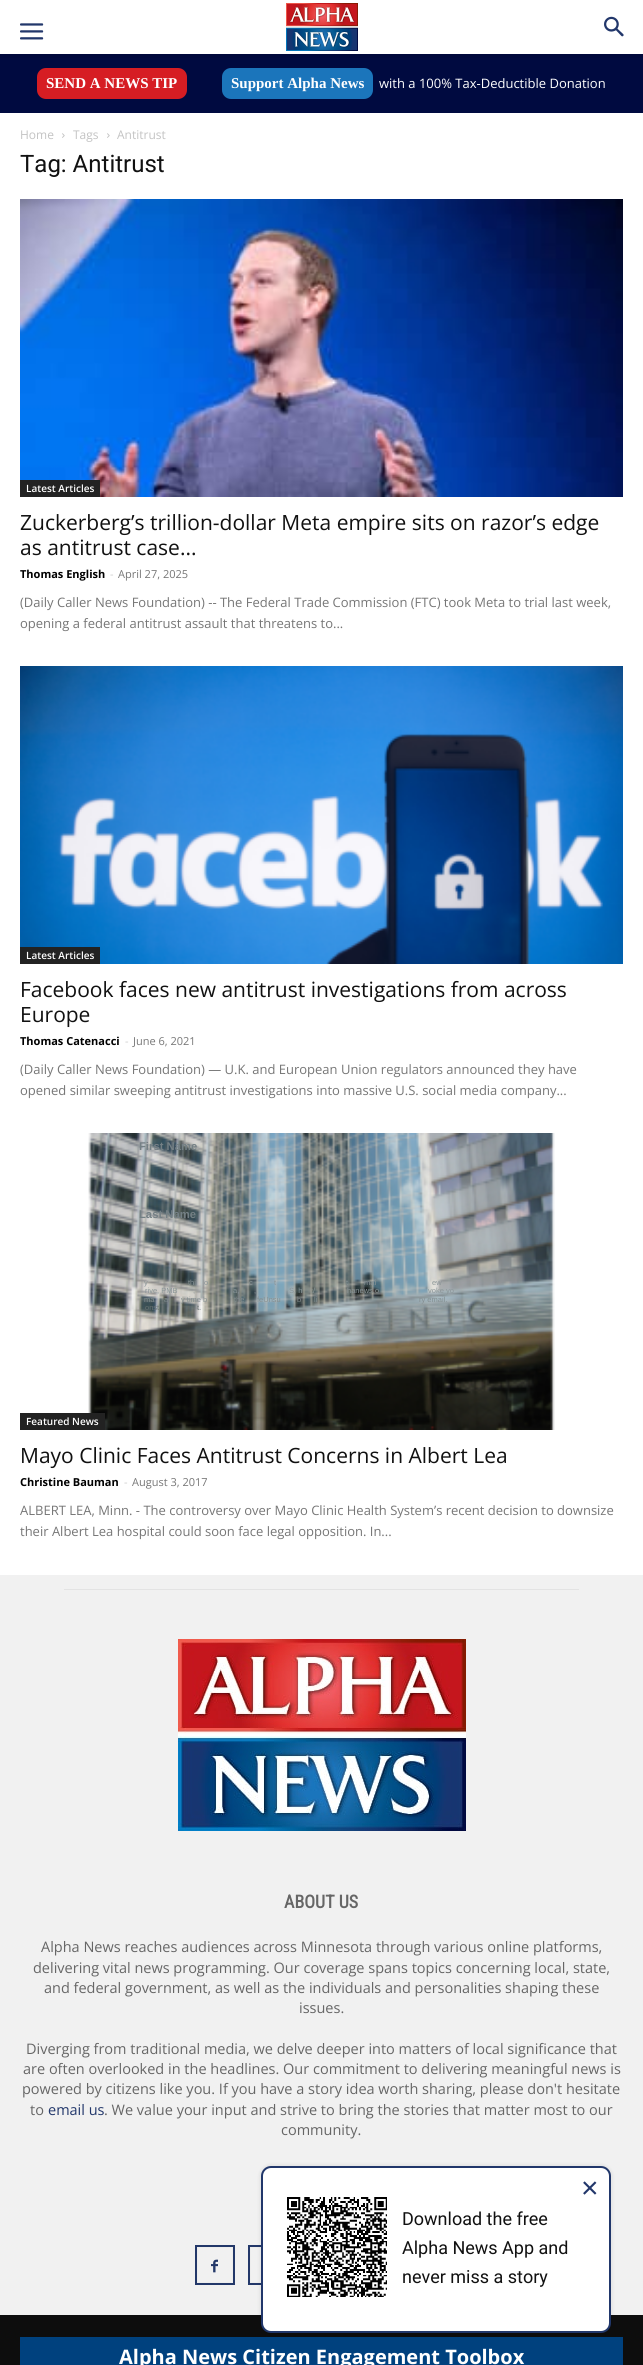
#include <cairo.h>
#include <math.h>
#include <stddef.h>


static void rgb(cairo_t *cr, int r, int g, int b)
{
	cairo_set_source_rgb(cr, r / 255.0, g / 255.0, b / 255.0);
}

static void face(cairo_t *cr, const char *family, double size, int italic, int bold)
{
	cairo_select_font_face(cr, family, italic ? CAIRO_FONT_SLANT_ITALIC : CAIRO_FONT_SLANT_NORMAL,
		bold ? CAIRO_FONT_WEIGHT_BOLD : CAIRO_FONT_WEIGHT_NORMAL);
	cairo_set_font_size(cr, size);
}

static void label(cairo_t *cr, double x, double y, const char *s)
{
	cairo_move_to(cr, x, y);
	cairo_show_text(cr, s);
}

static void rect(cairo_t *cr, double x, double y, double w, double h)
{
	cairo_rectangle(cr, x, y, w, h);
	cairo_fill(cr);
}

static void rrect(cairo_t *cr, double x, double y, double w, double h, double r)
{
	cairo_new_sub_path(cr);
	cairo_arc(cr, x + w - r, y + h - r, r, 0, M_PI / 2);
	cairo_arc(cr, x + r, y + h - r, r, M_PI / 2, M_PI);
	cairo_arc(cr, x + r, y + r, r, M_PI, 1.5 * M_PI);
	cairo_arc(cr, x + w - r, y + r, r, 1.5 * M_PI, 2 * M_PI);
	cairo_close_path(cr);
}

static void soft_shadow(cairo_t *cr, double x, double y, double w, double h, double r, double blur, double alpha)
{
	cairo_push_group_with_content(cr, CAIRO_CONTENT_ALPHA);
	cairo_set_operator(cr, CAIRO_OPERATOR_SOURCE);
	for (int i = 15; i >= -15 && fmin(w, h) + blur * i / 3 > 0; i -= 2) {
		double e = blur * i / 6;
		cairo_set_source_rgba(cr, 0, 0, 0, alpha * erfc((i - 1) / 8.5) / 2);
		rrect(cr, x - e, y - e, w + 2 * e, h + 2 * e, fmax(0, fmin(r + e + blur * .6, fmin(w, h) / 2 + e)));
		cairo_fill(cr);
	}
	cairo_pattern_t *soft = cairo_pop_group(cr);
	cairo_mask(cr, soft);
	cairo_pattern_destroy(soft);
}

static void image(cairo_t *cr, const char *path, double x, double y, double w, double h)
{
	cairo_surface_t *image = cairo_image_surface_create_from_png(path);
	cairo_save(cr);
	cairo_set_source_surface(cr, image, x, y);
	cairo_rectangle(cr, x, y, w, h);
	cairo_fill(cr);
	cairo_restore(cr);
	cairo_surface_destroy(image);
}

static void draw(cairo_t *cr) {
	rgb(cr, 255, 255, 255);
	cairo_paint(cr);
	image(cr, "image0.png", 20, 23, 24, 17);
	image(cr, "image1.png", 286, 3, 72, 48);
	image(cr, "image2.png", 604, 16, 20, 21);
	rgb(cr, 0, 10, 64);
	rect(cr, 0, 54, 643, 59);
	image(cr, "image3.png", 0, 54, 643, 4);
	rgb(cr, 214, 29, 35);
	rrect(cr, 37, 68, 150, 31, 9);
	cairo_fill(cr);
	face(cr, "Liberation Serif", 15, 0, 1);
	rgb(cr, 255, 255, 255);
	label(cr, 46, 88, "SEND A NEWS TIP");
	rgb(cr, 27, 117, 187);
	rrect(cr, 222, 68, 151, 31, 9);
	cairo_fill(cr);
	rgb(cr, 255, 255, 255);
	label(cr, 231, 88, "Support Alpha News");
	face(cr, "Open Sans", 13, 0, 0);
	label(cr, 379, 88, "with a 100% Tax-Deductible Donation");
	face(cr, "Open Sans", 12, 0, 0);
	rgb(cr, 195, 195, 195);
	label(cr, 20, 139, "Home");
	image(cr, "image4.png", 62, 133, 3, 5);
	label(cr, 73, 139, "Tags");
	image(cr, "image4.png", 107, 133, 3, 5);
	label(cr, 117, 139, "Antitrust");
	face(cr, "Roboto", 24, 0, 0);
	rgb(cr, 17, 17, 17);
	label(cr, 20, 172, "Tag: Antitrust");
	image(cr, "image5.png", 20, 199, 603, 298);
	rgb(cr, 34, 34, 34);
	rect(cr, 20, 480, 80, 17);
	face(cr, "Open Sans SemiBold", 10, 0, 0);
	rgb(cr, 255, 255, 255);
	label(cr, 26, 492, "Latest Articles");
	face(cr, "Open Sans", 21, 0, 0);
	rgb(cr, 17, 17, 17);
	label(cr, 20, 530, "Zuckerberg’s trillion-dollar Meta empire sits on razor’s edge");
	label(cr, 20, 555, "as antitrust case...");
	face(cr, "Open Sans", 11, 0, 1);
	rgb(cr, 0, 0, 0);
	label(cr, 20, 578, "Thomas English");
	face(cr, "Open Sans", 11, 0, 0);
	rgb(cr, 204, 204, 204);
	label(cr, 110, 578, "-");
	rgb(cr, 118, 118, 118);
	label(cr, 118, 578, "April 27, 2025");
	face(cr, "Open Sans", 13, 0, 0);
	label(cr, 20, 607, "(Daily Caller News Foundation) -- The Federal Trade Commission (FTC) took Meta to trial last week,");
	label(cr, 20, 628, "opening a federal antitrust assault that threatens to...");
	image(cr, "image6.png", 20, 666, 603, 298);
	rgb(cr, 34, 34, 34);
	rect(cr, 20, 947, 80, 17);
	face(cr, "Open Sans SemiBold", 10, 0, 0);
	rgb(cr, 255, 255, 255);
	label(cr, 26, 959, "Latest Articles");
	face(cr, "Open Sans", 21, 0, 0);
	rgb(cr, 17, 17, 17);
	label(cr, 20, 997, "Facebook faces new antitrust investigations from across");
	label(cr, 20, 1022, "Europe");
	face(cr, "Open Sans", 11, 0, 1);
	rgb(cr, 0, 0, 0);
	label(cr, 20, 1045, "Thomas Catenacci");
	face(cr, "Open Sans", 11, 0, 0);
	rgb(cr, 204, 204, 204);
	label(cr, 125, 1045, "-");
	rgb(cr, 118, 118, 118);
	label(cr, 133, 1045, "June 6, 2021");
	face(cr, "Open Sans", 13, 0, 0);
	label(cr, 20, 1074, "(Daily Caller News Foundation) — U.K. and European Union regulators announced they have");
	label(cr, 20, 1095, "opened similar sweeping antitrust investigations into massive U.S. social media company...");
	image(cr, "image7.png", 88, 1133, 467, 297);
	rgb(cr, 34, 34, 34);
	rect(cr, 20, 1413, 85, 17);
	face(cr, "Open Sans SemiBold", 10, 0, 0);
	rgb(cr, 255, 255, 255);
	label(cr, 26, 1425, "Featured News");
	face(cr, "Open Sans", 21, 0, 0);
	rgb(cr, 17, 17, 17);
	label(cr, 20, 1463, "Mayo Clinic Faces Antitrust Concerns in Albert Lea");
	face(cr, "Open Sans", 11, 0, 1);
	rgb(cr, 0, 0, 0);
	label(cr, 20, 1486, "Christine Bauman");
	face(cr, "Open Sans", 11, 0, 0);
	rgb(cr, 204, 204, 204);
	label(cr, 124, 1486, "-");
	rgb(cr, 118, 118, 118);
	label(cr, 132, 1486, "August 3, 2017");
	face(cr, "Open Sans", 13, 0, 0);
	label(cr, 20, 1515, "ALBERT LEA, Minn. - The controversy over Mayo Clinic Health System’s recent decision to downsize");
	label(cr, 20, 1536, "their Albert Lea hospital could soon face legal opposition. In...");
	rgb(cr, 241, 241, 241);
	rect(cr, 0, 1575, 643, 740);
	rgb(cr, 227, 227, 227);
	rect(cr, 64, 1589, 515, 1);
	image(cr, "image8.png", 178, 1639, 288, 192);
	face(cr, "Roboto Condensed", 18, 0, 1);
	rgb(cr, 102, 102, 102);
	label(cr, 284, 1908, "ABOUT US");
	face(cr, "Open Sans", 14.5, 0, 0);
	label(cr, 41, 1952, "Alpha News reaches audiences across Minnesota through various online platforms,");
	label(cr, 33, 1973, "delivering vital news programming. Our coverage spans topics concerning local, state,");
	label(cr, 44, 1993, "and federal government, as well as the individuals and personalities shaping these");
	label(cr, 299, 2013, "issues.");
	label(cr, 26, 2054, "Diverging from traditional media, we delve deeper into matters of local significance that");
	label(cr, 23, 2074, "are often overlooked in the headlines. Our commitment to delivering meaningful news is");
	label(cr, 22, 2094, "powered by citizens like you. If you have a story idea worth sharing, please don't hesitate");
	label(cr, 30, 2115, "to");
	rgb(cr, 34, 55, 107);
	label(cr, 48, 2115, "email us");
	rgb(cr, 102, 102, 102);
	label(cr, 104, 2115, ". We value your input and strive to bring the stories that matter most to our");
	label(cr, 281, 2135, "community.");
	cairo_rectangle(cr, 196, 2246, 38, 38);
	rgb(cr, 35, 56, 105);
	cairo_stroke(cr);
	image(cr, "image9.png", 211, 2259, 7, 14);
	cairo_rectangle(cr, 197.5, 2247.5, 35, 35);
	rgb(cr, 237, 237, 237);
	cairo_set_line_width(cr, 1);
	cairo_stroke(cr);
	cairo_rectangle(cr, 249, 2246, 38, 38);
	rgb(cr, 35, 56, 105);
	cairo_set_line_width(cr, 2);
	cairo_stroke(cr);
	cairo_rectangle(cr, 250.5, 2247.5, 35, 35);
	rgb(cr, 237, 237, 237);
	cairo_set_line_width(cr, 1);
	cairo_stroke(cr);
	rgb(cr, 13, 13, 13);
	rect(cr, 0, 2315, 643, 50);
	rgb(cr, 0, 65, 126);
	rect(cr, 20, 2337, 603, 28);
	face(cr, "Open Sans", 20, 0, 1);
	rgb(cr, 255, 255, 255);
	label(cr, 119, 2364, "Alpha News Citizen Engagement Toolbox");
	face(cr, "Liberation Sans", 11.25, 0, 1);
	rgb(cr, 116, 128, 133);
	label(cr, 139, 1150, "First Name");
	label(cr, 139, 1218, "Last Name");
	face(cr, "Liberation Sans", 7.5, 0, 0);
	rgb(cr, 138, 149, 152);
	label(cr, 144, 1285, "y");
	label(cr, 188, 1285, "thi");
	label(cr, 204, 1285, "o");
	label(cr, 249, 1285, "c");
	label(cr, 274, 1285, "t");
	label(cr, 346, 1285, "t");
	label(cr, 364, 1285, "mai");
	label(cr, 432, 1285, "ew");
	label(cr, 145, 1293, "rive, PMB");
	label(cr, 193, 1293, ",");
	label(cr, 233, 1293, "a,");
	label(cr, 254, 1293, ",");
	label(cr, 289, 1293, "S, h");
	label(cr, 311, 1293, ":/");
	label(cr, 347, 1293, "hanews.o");
	label(cr, 428, 1293, "voke yo");
	rgb(cr, 131, 142, 144);
	label(cr, 144, 1302, "ma");
	label(cr, 164, 1302, "a");
	label(cr, 181, 1302, "y time b");
	label(cr, 234, 1302, "the");
	label(cr, 257, 1302, "feUnsu");
	label(cr, 297, 1302, "b");
	label(cr, 314, 1302, "li");
	label(cr, 419, 1302, "ry email.");
	rgb(cr, 103, 114, 115);
	label(cr, 145, 1310, "onst");
	label(cr, 197, 1310, "t.");
	rgb(cr, 0, 0, 0);
	soft_shadow(cr, 260, 2165, 352, 169, 11, 2, 0.08);
	rgb(cr, 255, 255, 255);
	rrect(cr, 262, 2167, 348, 165, 9);
	cairo_fill_preserve(cr);
	rgb(cr, 33, 55, 107);
	cairo_set_line_width(cr, 2);
	cairo_stroke(cr);
	face(cr, "Liberation Sans", 30, 0, 0);
	rgb(cr, 34, 55, 107);
	label(cr, 581, 2198, "×");
	image(cr, "image10.png", 287, 2197, 100, 100);
	face(cr, "Roboto", 18, 0, 0);
	rgb(cr, 17, 17, 17);
	label(cr, 402, 2225, "Download the free");
	label(cr, 402, 2254, "Alpha News App and");
	label(cr, 402, 2283, "never miss a story");
}

int main(void) {
	cairo_surface_t *surface = cairo_image_surface_create(CAIRO_FORMAT_RGB24, 643, 2365);
	cairo_t *cr = cairo_create(surface);
	cairo_font_options_t *options = cairo_font_options_create();
	cairo_font_options_set_hint_metrics(options, CAIRO_HINT_METRICS_OFF);
	cairo_font_options_set_hint_style(options, CAIRO_HINT_STYLE_NONE);
	cairo_set_font_options(cr, options);
	cairo_set_miter_limit(cr, 4);
	draw(cr);
	cairo_surface_write_to_png(surface, "render.png");
	cairo_font_options_destroy(options);
	cairo_destroy(cr);
	cairo_surface_destroy(surface);
	return 0;
}
